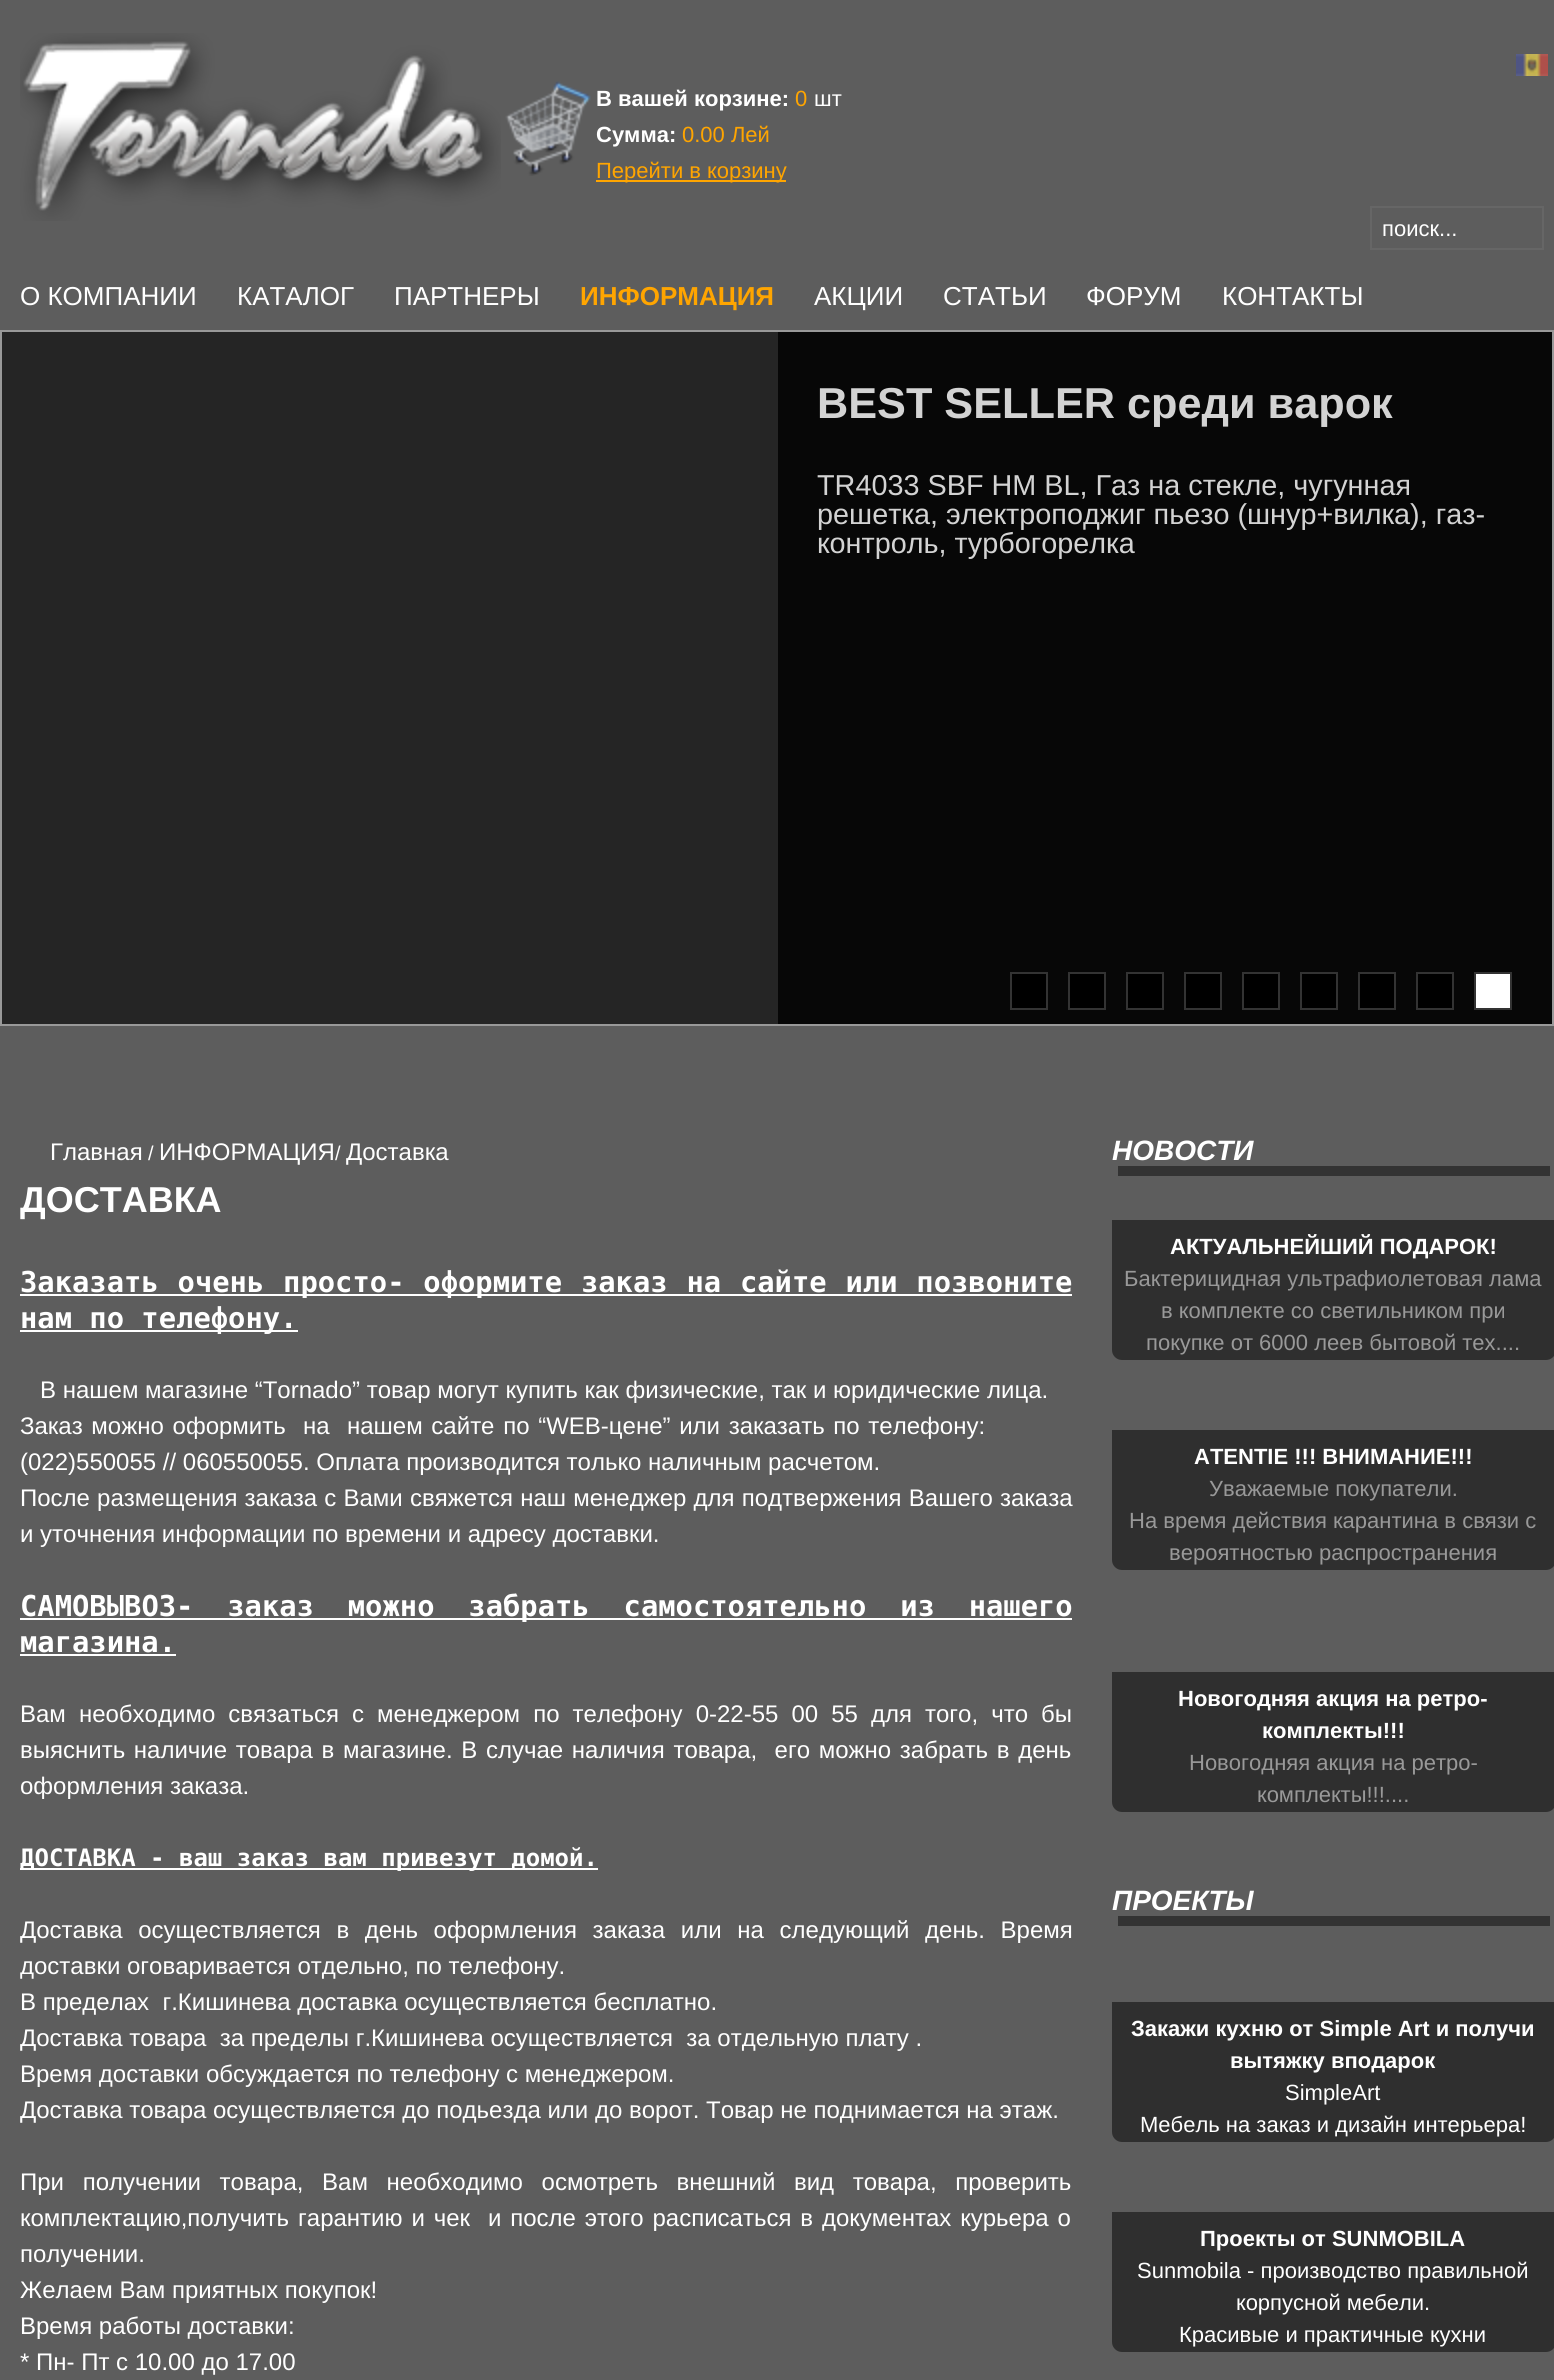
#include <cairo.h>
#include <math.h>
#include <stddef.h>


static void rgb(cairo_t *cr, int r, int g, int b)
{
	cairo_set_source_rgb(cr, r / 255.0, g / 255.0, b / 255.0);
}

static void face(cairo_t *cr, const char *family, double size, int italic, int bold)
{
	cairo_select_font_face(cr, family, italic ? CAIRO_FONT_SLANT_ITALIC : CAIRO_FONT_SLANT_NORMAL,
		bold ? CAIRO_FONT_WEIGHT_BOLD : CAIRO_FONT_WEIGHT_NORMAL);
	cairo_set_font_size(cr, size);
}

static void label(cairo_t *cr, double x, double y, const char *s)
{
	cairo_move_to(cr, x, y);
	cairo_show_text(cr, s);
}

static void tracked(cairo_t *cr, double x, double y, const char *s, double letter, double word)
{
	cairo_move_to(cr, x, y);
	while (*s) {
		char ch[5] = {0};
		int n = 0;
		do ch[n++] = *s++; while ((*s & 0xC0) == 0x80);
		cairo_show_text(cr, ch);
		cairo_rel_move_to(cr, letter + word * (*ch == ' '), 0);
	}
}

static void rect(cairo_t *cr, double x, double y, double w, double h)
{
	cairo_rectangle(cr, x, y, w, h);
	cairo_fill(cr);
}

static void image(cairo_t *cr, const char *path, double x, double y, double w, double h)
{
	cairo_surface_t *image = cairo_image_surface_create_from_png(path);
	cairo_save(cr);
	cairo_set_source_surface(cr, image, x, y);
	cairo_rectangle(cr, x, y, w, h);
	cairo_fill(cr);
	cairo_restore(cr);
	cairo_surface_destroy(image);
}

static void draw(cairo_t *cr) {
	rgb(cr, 93, 93, 93);
	cairo_paint(cr);
	image(cr, "image0.png", 20, 33, 481, 188);
	image(cr, "image1.png", 1516, 54, 32, 22);
	image(cr, "image2.png", 505, 81, 86, 95);
	face(cr, "Liberation Sans", 22, 0, 1);
	rgb(cr, 255, 255, 255);
	label(cr, 596, 106, "В вашей корзине:");
	face(cr, "Liberation Sans", 22, 0, 0);
	rgb(cr, 255, 165, 0);
	label(cr, 795, 106, "0");
	rgb(cr, 255, 255, 255);
	label(cr, 814, 106, "шт");
	face(cr, "Liberation Sans", 22, 0, 1);
	label(cr, 596, 142, "Сумма:");
	face(cr, "Liberation Sans", 22, 0, 0);
	rgb(cr, 255, 165, 0);
	label(cr, 682, 142, "0.00 Лей");
	rect(cr, 596, 180, 190, 2);
	label(cr, 596, 178, "Перейти в корзину");
	cairo_rectangle(cr, 1371, 207, 172, 42);
	rgb(cr, 102, 102, 102);
	cairo_stroke(cr);
	rgb(cr, 255, 255, 255);
	label(cr, 1382, 236, "поиск...");
	face(cr, "Liberation Sans", 26, 0, 0);
	label(cr, 20, 305, "О КОМПАНИИ");
	label(cr, 237, 305, "КАТАЛОГ");
	label(cr, 394, 305, "ПАРТНЕРЫ");
	face(cr, "Liberation Sans", 26, 0, 1);
	rgb(cr, 255, 165, 0);
	label(cr, 580, 305, "ИНФОРМАЦИЯ");
	face(cr, "Liberation Sans", 26, 0, 0);
	rgb(cr, 255, 255, 255);
	label(cr, 814, 305, "АКЦИИ");
	label(cr, 943, 305, "СТАТЬИ");
	label(cr, 1086, 305, "ФОРУМ");
	label(cr, 1222, 305, "КОНТАКТЫ");
	cairo_rectangle(cr, 1, 331, 1552, 694);
	rgb(cr, 153, 153, 153);
	cairo_stroke(cr);
	rgb(cr, 37, 37, 37);
	rect(cr, 2, 332, 776, 692);
	rgb(cr, 7, 7, 7);
	rect(cr, 778, 332, 774, 692);
	face(cr, "Liberation Sans", 43.25, 0, 1);
	rgb(cr, 211, 211, 211);
	label(cr, 817, 418, "BEST SELLER среди варок");
	face(cr, "Liberation Sans", 28.8, 0, 0);
	label(cr, 817, 495, "TR4033 SBF HM BL, Газ на стекле, чугунная");
	label(cr, 817, 524, "решетка, электроподжиг пьезо (шнур+вилка), газ-");
	label(cr, 817, 553, "контроль, турбогорелка");
	rgb(cr, 0, 0, 0);
	cairo_rectangle(cr, 1011, 973, 36, 36);
	cairo_fill_preserve(cr);
	rgb(cr, 51, 51, 51);
	cairo_stroke(cr);
	rgb(cr, 0, 0, 0);
	cairo_rectangle(cr, 1069, 973, 36, 36);
	cairo_fill_preserve(cr);
	rgb(cr, 51, 51, 51);
	cairo_stroke(cr);
	rgb(cr, 0, 0, 0);
	cairo_rectangle(cr, 1127, 973, 36, 36);
	cairo_fill_preserve(cr);
	rgb(cr, 51, 51, 51);
	cairo_stroke(cr);
	rgb(cr, 0, 0, 0);
	cairo_rectangle(cr, 1185, 973, 36, 36);
	cairo_fill_preserve(cr);
	rgb(cr, 51, 51, 51);
	cairo_stroke(cr);
	rgb(cr, 0, 0, 0);
	cairo_rectangle(cr, 1243, 973, 36, 36);
	cairo_fill_preserve(cr);
	rgb(cr, 51, 51, 51);
	cairo_stroke(cr);
	rgb(cr, 0, 0, 0);
	cairo_rectangle(cr, 1301, 973, 36, 36);
	cairo_fill_preserve(cr);
	rgb(cr, 51, 51, 51);
	cairo_stroke(cr);
	rgb(cr, 0, 0, 0);
	cairo_rectangle(cr, 1359, 973, 36, 36);
	cairo_fill_preserve(cr);
	rgb(cr, 51, 51, 51);
	cairo_stroke(cr);
	rgb(cr, 0, 0, 0);
	cairo_rectangle(cr, 1417, 973, 36, 36);
	cairo_fill_preserve(cr);
	rgb(cr, 51, 51, 51);
	cairo_stroke(cr);
	rgb(cr, 255, 255, 255);
	cairo_rectangle(cr, 1475, 973, 36, 36);
	cairo_fill_preserve(cr);
	rgb(cr, 51, 51, 51);
	cairo_stroke(cr);
	face(cr, "Liberation Sans", 24, 0, 0);
	rgb(cr, 255, 255, 255);
	label(cr, 50, 1160, "Главная");
	face(cr, "Liberation Sans", 20, 0, 0);
	label(cr, 148, 1160, "/");
	face(cr, "Liberation Sans", 24, 0, 0);
	label(cr, 159, 1160, "ИНФОРМАЦИЯ");
	face(cr, "Liberation Sans", 20, 0, 0);
	label(cr, 335, 1160, "/");
	face(cr, "Liberation Sans", 24, 0, 0);
	label(cr, 346, 1160, "Доставка");
	face(cr, "Liberation Sans", 36, 0, 1);
	label(cr, 20, 1212, "ДОСТАВКА");
	rect(cr, 20, 1294, 1052, 2);
	face(cr, "DejaVu Sans Mono", 28.8, 0, 1);
	tracked(cr, 20, 1292, "Заказать очень просто- оформите заказ на сайте или позвоните", 0, 1.5);
	rect(cr, 20, 1330, 278, 2);
	label(cr, 20, 1328, "нам по телефону.");
	face(cr, "Liberation Sans", 24, 0, 0);
	label(cr, 40, 1398, "В нашем магазине “Tornado” товар могут купить как физические, так и юридические лица.");
	tracked(cr, 20, 1434, "Заказ можно оформить  на  нашем сайте по “WEB-цене” или заказать по телефону:", 0, 2);
	label(cr, 20, 1470, "(022)550055 // 060550055. Оплата производится только наличным расчетом.");
	tracked(cr, 20, 1506, "После размещения заказа с Вами свяжется наш менеджер для подтвержения Вашего заказа", 0, 0.5);
	label(cr, 20, 1542, "и уточнения информации по времени и адресу доставки.");
	rect(cr, 20, 1618, 1052, 2);
	face(cr, "DejaVu Sans Mono", 28.8, 0, 1);
	tracked(cr, 20, 1616, "САМОВЫВОЗ- заказ можно забрать самостоятельно из нашего", 0, 16.5);
	label(cr, 20, 1652, "магазина.");
	rect(cr, 20, 1654, 156, 2);
	face(cr, "Liberation Sans", 24, 0, 0);
	tracked(cr, 20, 1722, "Вам необходимо связаться с менеджером по телефону 0-22-55 00 55 для того, что бы", 0, 6.4);
	tracked(cr, 20, 1758, "выяснить наличие товара в магазине. В случае наличия товара,  его можно забрать в день", 0, 2);
	label(cr, 20, 1794, "оформления заказа.");
	rect(cr, 20, 1868, 578, 2);
	face(cr, "DejaVu Sans Mono", 24, 0, 1);
	label(cr, 20, 1866, "ДОСТАВКА - ваш заказ вам привезут домой.");
	face(cr, "Liberation Sans", 24, 0, 0);
	tracked(cr, 20, 1938, "Доставка осуществляется в день оформления заказа или на следующий день. Время", 0, 9);
	label(cr, 20, 1974, "доставки оговаривается отдельно, по телефону.");
	label(cr, 20, 2010, "В пределах  г.Кишинева доставка осуществляется бесплатно.");
	label(cr, 20, 2046, "Доставка товара  за пределы г.Кишинева осуществляется  за отдельную плату .");
	label(cr, 20, 2082, "Время доставки обсуждается по телефону с менеджером.");
	label(cr, 20, 2118, "Доставка товара осуществляется до подьезда или до ворот. Товар не поднимается на этаж.");
	tracked(cr, 20, 2190, "При получении товара, Вам необходимо осмотреть внешний вид товара, проверить", 0, 12);
	tracked(cr, 20, 2226, "комплектацию,получить гарантию и чек  и после этого расписаться в документах курьера о", 0, 2.25);
	label(cr, 20, 2262, "получении.");
	label(cr, 20, 2298, "Желаем Вам приятных покупок!");
	label(cr, 20, 2334, "Время работы доставки:");
	label(cr, 20, 2370, "* Пн- Пт с 10.00 до 17.00");
	rgb(cr, 51, 51, 51);
	rect(cr, 1118, 1166, 432, 10);
	face(cr, "Liberation Sans", 28, 1, 1);
	rgb(cr, 255, 255, 255);
	label(cr, 1112, 1160, "НОВОСТИ");
	rgb(cr, 47, 47, 47);
	cairo_new_path(cr);
	cairo_move_to(cr, 1112, 1220);
	cairo_line_to(cr, 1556, 1220);
	cairo_line_to(cr, 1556, 1350);
	cairo_curve_to(cr, 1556, 1355.5, 1551.5, 1360, 1546, 1360);
	cairo_line_to(cr, 1122, 1360);
	cairo_curve_to(cr, 1116.5, 1360, 1112, 1355.5, 1112, 1350);
	cairo_close_path(cr);
	cairo_fill(cr);
	face(cr, "Liberation Sans", 22, 0, 1);
	rgb(cr, 255, 255, 255);
	label(cr, 1170, 1254, "АКТУАЛЬНЕЙШИЙ ПОДАРОК!");
	face(cr, "Liberation Sans", 22, 0, 0);
	rgb(cr, 153, 153, 153);
	label(cr, 1124, 1286, "Бактерицидная ультрафиолетовая лама");
	label(cr, 1161, 1318, "в комплекте со светильником при");
	label(cr, 1146, 1350, "покупке от 6000 леев бытовой тех....");
	rgb(cr, 47, 47, 47);
	cairo_new_path(cr);
	cairo_move_to(cr, 1112, 1430);
	cairo_line_to(cr, 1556, 1430);
	cairo_line_to(cr, 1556, 1560);
	cairo_curve_to(cr, 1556, 1565.5, 1551.5, 1570, 1546, 1570);
	cairo_line_to(cr, 1122, 1570);
	cairo_curve_to(cr, 1116.5, 1570, 1112, 1565.5, 1112, 1560);
	cairo_close_path(cr);
	cairo_fill(cr);
	face(cr, "Liberation Sans", 22, 0, 1);
	rgb(cr, 255, 255, 255);
	label(cr, 1194, 1464, "ATENTIE !!! ВНИМАНИЕ!!!");
	face(cr, "Liberation Sans", 22, 0, 0);
	rgb(cr, 153, 153, 153);
	label(cr, 1209, 1496, "Уважаемые покупатели.");
	label(cr, 1129, 1528, "На время действия карантина в связи с");
	label(cr, 1169, 1560, "вероятностью распространения");
	rgb(cr, 47, 47, 47);
	cairo_new_path(cr);
	cairo_move_to(cr, 1112, 1672);
	cairo_line_to(cr, 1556, 1672);
	cairo_line_to(cr, 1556, 1802);
	cairo_curve_to(cr, 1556, 1807.5, 1551.5, 1812, 1546, 1812);
	cairo_line_to(cr, 1122, 1812);
	cairo_curve_to(cr, 1116.5, 1812, 1112, 1807.5, 1112, 1802);
	cairo_close_path(cr);
	cairo_fill(cr);
	face(cr, "Liberation Sans", 22, 0, 1);
	rgb(cr, 255, 255, 255);
	label(cr, 1178, 1706, "Новогодняя акция на ретро-");
	label(cr, 1262, 1738, "комплекты!!!");
	face(cr, "Liberation Sans", 22, 0, 0);
	rgb(cr, 153, 153, 153);
	label(cr, 1189, 1770, "Новогодняя акция на ретро-");
	label(cr, 1257, 1802, "комплекты!!!....");
	rgb(cr, 51, 51, 51);
	rect(cr, 1118, 1916, 432, 10);
	face(cr, "Liberation Sans", 28, 1, 1);
	rgb(cr, 255, 255, 255);
	label(cr, 1112, 1910, "ПРОЕКТЫ");
	rgb(cr, 47, 47, 47);
	cairo_new_path(cr);
	cairo_move_to(cr, 1112, 2002);
	cairo_line_to(cr, 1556, 2002);
	cairo_line_to(cr, 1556, 2132);
	cairo_curve_to(cr, 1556, 2137.5, 1551.5, 2142, 1546, 2142);
	cairo_line_to(cr, 1122, 2142);
	cairo_curve_to(cr, 1116.5, 2142, 1112, 2137.5, 1112, 2132);
	cairo_close_path(cr);
	cairo_fill(cr);
	face(cr, "Liberation Sans", 22, 0, 1);
	rgb(cr, 255, 255, 255);
	label(cr, 1131, 2036, "Закажи кухню от Simple Art и получи");
	label(cr, 1230, 2068, "вытяжку вподарок");
	face(cr, "Liberation Sans", 22, 0, 0);
	label(cr, 1285, 2100, "SimpleArt");
	label(cr, 1140, 2132, "Мебель на заказ и дизайн интерьера!");
	rgb(cr, 47, 47, 47);
	cairo_new_path(cr);
	cairo_move_to(cr, 1112, 2212);
	cairo_line_to(cr, 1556, 2212);
	cairo_line_to(cr, 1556, 2342);
	cairo_curve_to(cr, 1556, 2347.5, 1551.5, 2352, 1546, 2352);
	cairo_line_to(cr, 1122, 2352);
	cairo_curve_to(cr, 1116.5, 2352, 1112, 2347.5, 1112, 2342);
	cairo_close_path(cr);
	cairo_fill(cr);
	face(cr, "Liberation Sans", 22, 0, 1);
	rgb(cr, 255, 255, 255);
	label(cr, 1200, 2246, "Проекты от SUNMOBILA");
	face(cr, "Liberation Sans", 22, 0, 0);
	label(cr, 1137, 2278, "Sunmobila - производство правильной");
	label(cr, 1236, 2310, "корпусной мебели.");
	label(cr, 1179, 2342, "Красивые и практичные кухни");
}

int main(void) {
	cairo_surface_t *surface = cairo_image_surface_create(CAIRO_FORMAT_RGB24, 1554, 2380);
	cairo_t *cr = cairo_create(surface);
	cairo_font_options_t *options = cairo_font_options_create();
	cairo_font_options_set_hint_metrics(options, CAIRO_HINT_METRICS_OFF);
	cairo_font_options_set_hint_style(options, CAIRO_HINT_STYLE_NONE);
	cairo_set_font_options(cr, options);
	cairo_set_miter_limit(cr, 4);
	draw(cr);
	cairo_surface_write_to_png(surface, "render.png");
	cairo_font_options_destroy(options);
	cairo_destroy(cr);
	cairo_surface_destroy(surface);
	return 0;
}
